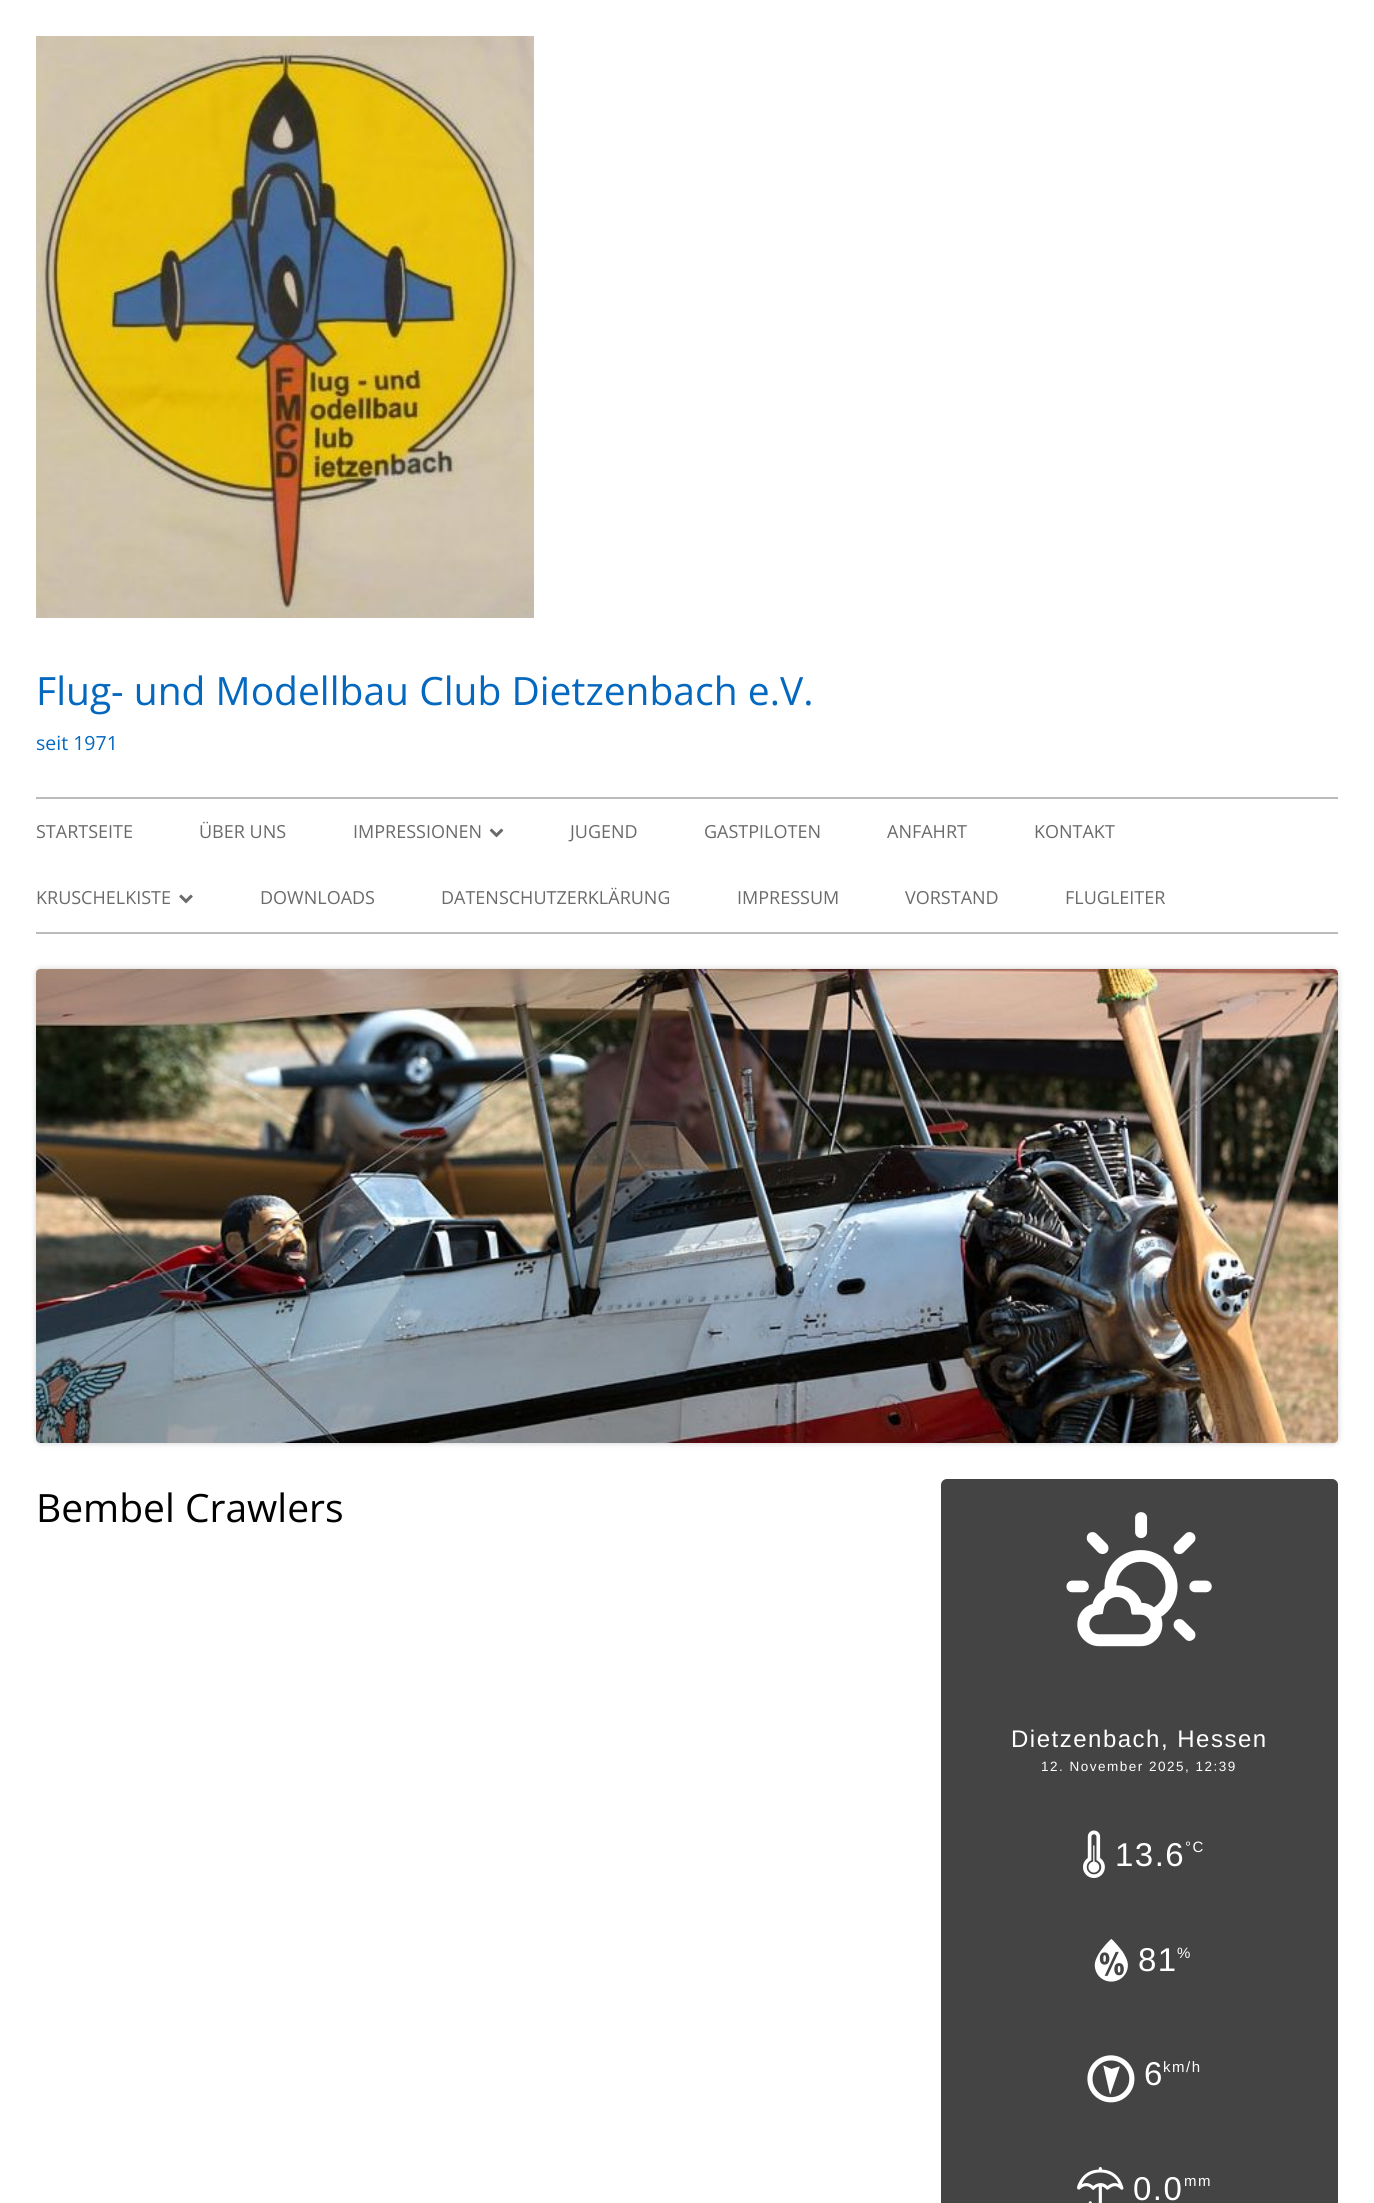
#include <cairo.h>
#include <math.h>
#include <stddef.h>


static void rgb(cairo_t *cr, int r, int g, int b)
{
	cairo_set_source_rgb(cr, r / 255.0, g / 255.0, b / 255.0);
}

static void face(cairo_t *cr, const char *family, double size, int italic, int bold)
{
	cairo_select_font_face(cr, family, italic ? CAIRO_FONT_SLANT_ITALIC : CAIRO_FONT_SLANT_NORMAL,
		bold ? CAIRO_FONT_WEIGHT_BOLD : CAIRO_FONT_WEIGHT_NORMAL);
	cairo_set_font_size(cr, size);
}

static void label(cairo_t *cr, double x, double y, const char *s)
{
	cairo_move_to(cr, x, y);
	cairo_show_text(cr, s);
}

static void tracked(cairo_t *cr, double x, double y, const char *s, double letter, double word)
{
	cairo_move_to(cr, x, y);
	while (*s) {
		char ch[5] = {0};
		int n = 0;
		do ch[n++] = *s++; while ((*s & 0xC0) == 0x80);
		cairo_show_text(cr, ch);
		cairo_rel_move_to(cr, letter + word * (*ch == ' '), 0);
	}
}

static void rect(cairo_t *cr, double x, double y, double w, double h)
{
	cairo_rectangle(cr, x, y, w, h);
	cairo_fill(cr);
}

static void rrect(cairo_t *cr, double x, double y, double w, double h, double r)
{
	cairo_new_sub_path(cr);
	cairo_arc(cr, x + w - r, y + h - r, r, 0, M_PI / 2);
	cairo_arc(cr, x + r, y + h - r, r, M_PI / 2, M_PI);
	cairo_arc(cr, x + r, y + r, r, M_PI, 1.5 * M_PI);
	cairo_arc(cr, x + w - r, y + r, r, 1.5 * M_PI, 2 * M_PI);
	cairo_close_path(cr);
}

static void soft_shadow(cairo_t *cr, double x, double y, double w, double h, double r, double blur, double alpha)
{
	cairo_push_group_with_content(cr, CAIRO_CONTENT_ALPHA);
	cairo_set_operator(cr, CAIRO_OPERATOR_SOURCE);
	for (int i = 15; i >= -15 && fmin(w, h) + blur * i / 3 > 0; i -= 2) {
		double e = blur * i / 6;
		cairo_set_source_rgba(cr, 0, 0, 0, alpha * erfc((i - 1) / 8.5) / 2);
		rrect(cr, x - e, y - e, w + 2 * e, h + 2 * e, fmax(0, fmin(r + e + blur * .6, fmin(w, h) / 2 + e)));
		cairo_fill(cr);
	}
	cairo_pattern_t *soft = cairo_pop_group(cr);
	cairo_mask(cr, soft);
	cairo_pattern_destroy(soft);
}

static void image(cairo_t *cr, const char *path, double x, double y, double w, double h)
{
	cairo_surface_t *image = cairo_image_surface_create_from_png(path);
	cairo_save(cr);
	cairo_set_source_surface(cr, image, x, y);
	cairo_rectangle(cr, x, y, w, h);
	cairo_fill(cr);
	cairo_restore(cr);
	cairo_surface_destroy(image);
}

static void draw(cairo_t *cr) {
	rgb(cr, 255, 255, 255);
	cairo_paint(cr);
	image(cr, "image0.png", 36, 36, 498, 582);
	face(cr, "Open Sans", 39, 0, 0);
	rgb(cr, 5, 104, 191);
	label(cr, 36, 705, "Flug- und Modellbau Club Dietzenbach e.V.");
	face(cr, "Open Sans", 19.5, 0, 0);
	label(cr, 36, 750, "seit 1971");
	rgb(cr, 187, 187, 187);
	rect(cr, 36, 797, 1302, 2);
	rect(cr, 36, 932, 1302, 2);
	face(cr, "Open Sans", 18, 0, 0);
	rgb(cr, 106, 106, 106);
	label(cr, 36, 838, "STARTSEITE");
	label(cr, 199, 838, "ÜBER UNS");
	label(cr, 353, 838, "IMPRESSIONEN");
	image(cr, "image1.png", 489, 828, 15, 10);
	label(cr, 570, 838, "JUGEND");
	label(cr, 704, 838, "GASTPILOTEN");
	label(cr, 887, 838, "ANFAHRT");
	label(cr, 1034, 838, "KONTAKT");
	label(cr, 36, 904, "KRUSCHELKISTE");
	image(cr, "image2.png", 179, 894, 14, 10);
	label(cr, 260, 904, "DOWNLOADS");
	label(cr, 441, 904, "DATENSCHUTZERKLÄRUNG");
	label(cr, 737, 904, "IMPRESSUM");
	label(cr, 905, 904, "VORSTAND");
	label(cr, 1065, 904, "FLUGLEITER");
	rgb(cr, 0, 0, 0);
	soft_shadow(cr, 36, 969, 1302, 474, 5, 3, 0.2);
	image(cr, "image3.png", 36, 969, 1302, 474);
	face(cr, "Open Sans", 39, 0, 0);
	rgb(cr, 0, 0, 0);
	label(cr, 36, 1522, "Bembel Crawlers");
	rgb(cr, 68, 68, 68);
	rrect(cr, 941, 1479, 397, 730, 6);
	cairo_fill(cr);
	image(cr, "image4.png", 1066, 1512, 146, 135);
	face(cr, "Liberation Sans", 24, 0, 0);
	rgb(cr, 255, 255, 255);
	tracked(cr, 1011, 1747, "Dietzenbach, Hessen", 1.5, 0);
	face(cr, "Liberation Sans", 13.5, 0, 0);
	tracked(cr, 1041, 1771, "12. November 2025, 12:39", 1.5, 0);
	image(cr, "image5.png", 1083, 1830, 22, 48);
	face(cr, "Liberation Sans", 33, 0, 0);
	tracked(cr, 1115, 1866, "13.6", 1.5, 0);
	face(cr, "Liberation Sans", 15, 0, 0);
	tracked(cr, 1185, 1852, "°C", 1.5, 0);
	image(cr, "image6.png", 1094, 1939, 34, 43);
	face(cr, "Liberation Sans", 33, 0, 0);
	tracked(cr, 1138, 1971, "81", 1.5, 0);
	face(cr, "Liberation Sans", 15, 0, 0);
	tracked(cr, 1177, 1958, "%", 1.5, 0);
	image(cr, "image7.png", 1087, 2055, 48, 48);
	face(cr, "Liberation Sans", 33, 0, 0);
	tracked(cr, 1144, 2085, "6", 1.5, 0);
	face(cr, "Liberation Sans", 15, 0, 0);
	tracked(cr, 1163, 2072, "km/h", 1.5, 0);
	image(cr, "image8.png", 1077, 2167, 47, 36);
	face(cr, "Liberation Sans", 33, 0, 0);
	tracked(cr, 1133, 2200, "0.0", 1.5, 0);
	face(cr, "Liberation Sans", 15, 0, 0);
	tracked(cr, 1184, 2186, "mm", 1.5, 0);
}

int main(void) {
	cairo_surface_t *surface = cairo_image_surface_create(CAIRO_FORMAT_RGB24, 1374, 2203);
	cairo_t *cr = cairo_create(surface);
	cairo_font_options_t *options = cairo_font_options_create();
	cairo_font_options_set_hint_metrics(options, CAIRO_HINT_METRICS_OFF);
	cairo_font_options_set_hint_style(options, CAIRO_HINT_STYLE_NONE);
	cairo_set_font_options(cr, options);
	cairo_set_miter_limit(cr, 4);
	draw(cr);
	cairo_surface_write_to_png(surface, "render.png");
	cairo_font_options_destroy(options);
	cairo_destroy(cr);
	cairo_surface_destroy(surface);
	return 0;
}
